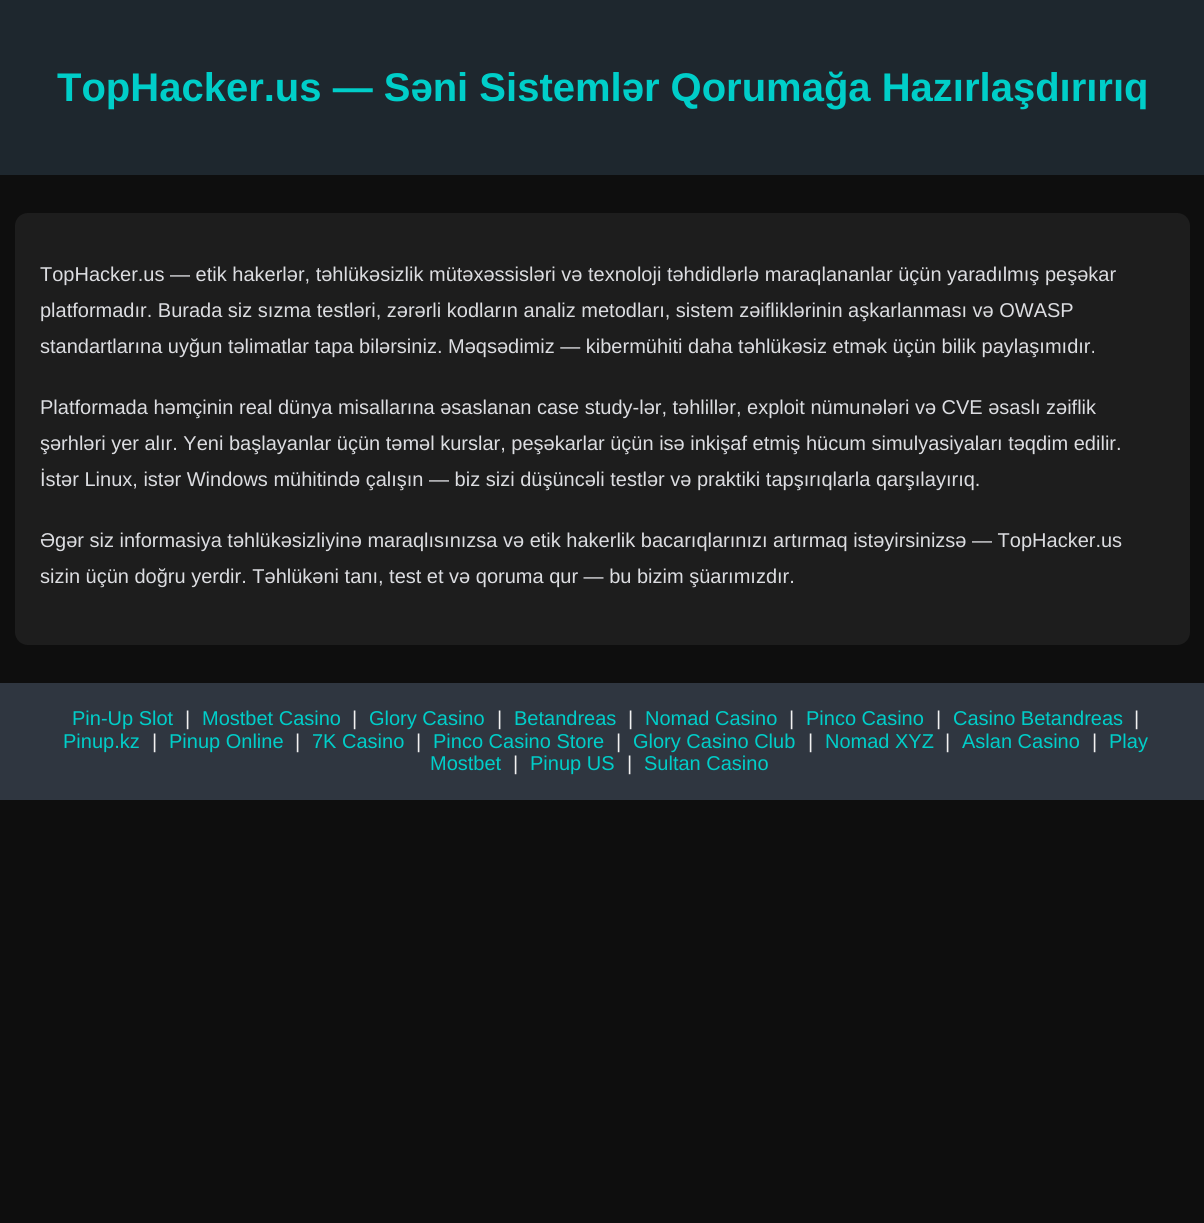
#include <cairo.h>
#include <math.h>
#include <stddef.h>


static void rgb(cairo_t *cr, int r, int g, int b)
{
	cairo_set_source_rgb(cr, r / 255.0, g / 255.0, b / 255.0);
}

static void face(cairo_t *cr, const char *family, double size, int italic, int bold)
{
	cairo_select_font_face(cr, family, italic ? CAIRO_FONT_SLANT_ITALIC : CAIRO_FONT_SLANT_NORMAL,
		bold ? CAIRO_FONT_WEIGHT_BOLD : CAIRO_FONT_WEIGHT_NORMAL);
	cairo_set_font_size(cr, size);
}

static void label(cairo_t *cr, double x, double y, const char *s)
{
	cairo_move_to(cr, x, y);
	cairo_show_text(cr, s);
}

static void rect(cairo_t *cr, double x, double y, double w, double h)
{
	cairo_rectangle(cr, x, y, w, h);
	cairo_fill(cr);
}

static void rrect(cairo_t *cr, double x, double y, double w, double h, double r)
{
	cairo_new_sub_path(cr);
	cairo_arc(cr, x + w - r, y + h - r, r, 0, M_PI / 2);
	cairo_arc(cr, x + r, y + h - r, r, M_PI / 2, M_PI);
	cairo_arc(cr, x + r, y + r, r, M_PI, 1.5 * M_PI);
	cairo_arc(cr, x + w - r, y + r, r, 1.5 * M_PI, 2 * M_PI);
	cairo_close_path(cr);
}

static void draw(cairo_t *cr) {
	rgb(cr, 14, 14, 14);
	cairo_paint(cr);
	rgb(cr, 30, 39, 46);
	rect(cr, 0, 0, 1204, 175);
	face(cr, "Liberation Sans", 40, 0, 1);
	rgb(cr, 0, 206, 201);
	label(cr, 57, 101, "TopHacker.us — Səni Sistemlər Qorumağa Hazırlaşdırırıq");
	rgb(cr, 29, 29, 29);
	rrect(cr, 15, 213, 1175, 432, 13);
	cairo_fill(cr);
	face(cr, "Liberation Sans", 20, 0, 0);
	rgb(cr, 220, 221, 225);
	label(cr, 40, 281, "TopHacker.us — etik hakerlər, təhlükəsizlik mütəxəssisləri və texnoloji təhdidlərlə maraqlananlar üçün yaradılmış peşəkar");
	label(cr, 40, 317, "platformadır. Burada siz sızma testləri, zərərli kodların analiz metodları, sistem zəifliklərinin aşkarlanması və OWASP");
	label(cr, 40, 353, "standartlarına uyğun təlimatlar tapa bilərsiniz. Məqsədimiz — kibermühiti daha təhlükəsiz etmək üçün bilik paylaşımıdır.");
	label(cr, 40, 414, "Platformada həmçinin real dünya misallarına əsaslanan case study-lər, təhlillər, exploit nümunələri və CVE əsaslı zəiflik");
	label(cr, 40, 450, "şərhləri yer alır. Yeni başlayanlar üçün təməl kurslar, peşəkarlar üçün isə inkişaf etmiş hücum simulyasiyaları təqdim edilir.");
	label(cr, 40, 486, "İstər Linux, istər Windows mühitində çalışın — biz sizi düşüncəli testlər və praktiki tapşırıqlarla qarşılayırıq.");
	label(cr, 40, 547, "Əgər siz informasiya təhlükəsizliyinə maraqlısınızsa və etik hakerlik bacarıqlarınızı artırmaq istəyirsinizsə — TopHacker.us");
	label(cr, 40, 583, "sizin üçün doğru yerdir. Təhlükəni tanı, test et və qoruma qur — bu bizim şüarımızdır.");
	rgb(cr, 47, 54, 64);
	rect(cr, 0, 683, 1204, 117);
	rgb(cr, 0, 206, 201);
	label(cr, 72, 725, "Pin-Up Slot");
	rgb(cr, 241, 241, 241);
	label(cr, 185, 725, "|");
	rgb(cr, 0, 206, 201);
	label(cr, 202, 725, "Mostbet Casino");
	rgb(cr, 241, 241, 241);
	label(cr, 352, 725, "|");
	rgb(cr, 0, 206, 201);
	label(cr, 369, 725, "Glory Casino");
	rgb(cr, 241, 241, 241);
	label(cr, 497, 725, "|");
	rgb(cr, 0, 206, 201);
	label(cr, 514, 725, "Betandreas");
	rgb(cr, 241, 241, 241);
	label(cr, 628, 725, "|");
	rgb(cr, 0, 206, 201);
	label(cr, 645, 725, "Nomad Casino");
	rgb(cr, 241, 241, 241);
	label(cr, 789, 725, "|");
	rgb(cr, 0, 206, 201);
	label(cr, 806, 725, "Pinco Casino");
	rgb(cr, 241, 241, 241);
	label(cr, 936, 725, "|");
	rgb(cr, 0, 206, 201);
	label(cr, 953, 725, "Casino Betandreas");
	rgb(cr, 241, 241, 241);
	label(cr, 1134, 725, "|");
	rgb(cr, 0, 206, 201);
	label(cr, 63, 748, "Pinup.kz");
	rgb(cr, 241, 241, 241);
	label(cr, 152, 748, "|");
	rgb(cr, 0, 206, 201);
	label(cr, 169, 748, "Pinup Online");
	rgb(cr, 241, 241, 241);
	label(cr, 295, 748, "|");
	rgb(cr, 0, 206, 201);
	label(cr, 312, 748, "7K Casino");
	rgb(cr, 241, 241, 241);
	label(cr, 416, 748, "|");
	rgb(cr, 0, 206, 201);
	label(cr, 433, 748, "Pinco Casino Store");
	rgb(cr, 241, 241, 241);
	label(cr, 616, 748, "|");
	rgb(cr, 0, 206, 201);
	label(cr, 633, 748, "Glory Casino Club");
	rgb(cr, 241, 241, 241);
	label(cr, 808, 748, "|");
	rgb(cr, 0, 206, 201);
	label(cr, 825, 748, "Nomad XYZ");
	rgb(cr, 241, 241, 241);
	label(cr, 945, 748, "|");
	rgb(cr, 0, 206, 201);
	label(cr, 962, 748, "Aslan Casino");
	rgb(cr, 241, 241, 241);
	label(cr, 1092, 748, "|");
	rgb(cr, 0, 206, 201);
	label(cr, 1109, 748, "Play");
	label(cr, 430, 770, "Mostbet");
	rgb(cr, 241, 241, 241);
	label(cr, 513, 770, "|");
	rgb(cr, 0, 206, 201);
	label(cr, 530, 770, "Pinup US");
	rgb(cr, 241, 241, 241);
	label(cr, 627, 770, "|");
	rgb(cr, 0, 206, 201);
	label(cr, 644, 770, "Sultan Casino");
}

int main(void) {
	cairo_surface_t *surface = cairo_image_surface_create(CAIRO_FORMAT_RGB24, 1204, 1223);
	cairo_t *cr = cairo_create(surface);
	cairo_font_options_t *options = cairo_font_options_create();
	cairo_font_options_set_hint_metrics(options, CAIRO_HINT_METRICS_OFF);
	cairo_font_options_set_hint_style(options, CAIRO_HINT_STYLE_NONE);
	cairo_set_font_options(cr, options);
	cairo_set_miter_limit(cr, 4);
	draw(cr);
	cairo_surface_write_to_png(surface, "render.png");
	cairo_font_options_destroy(options);
	cairo_destroy(cr);
	cairo_surface_destroy(surface);
	return 0;
}
